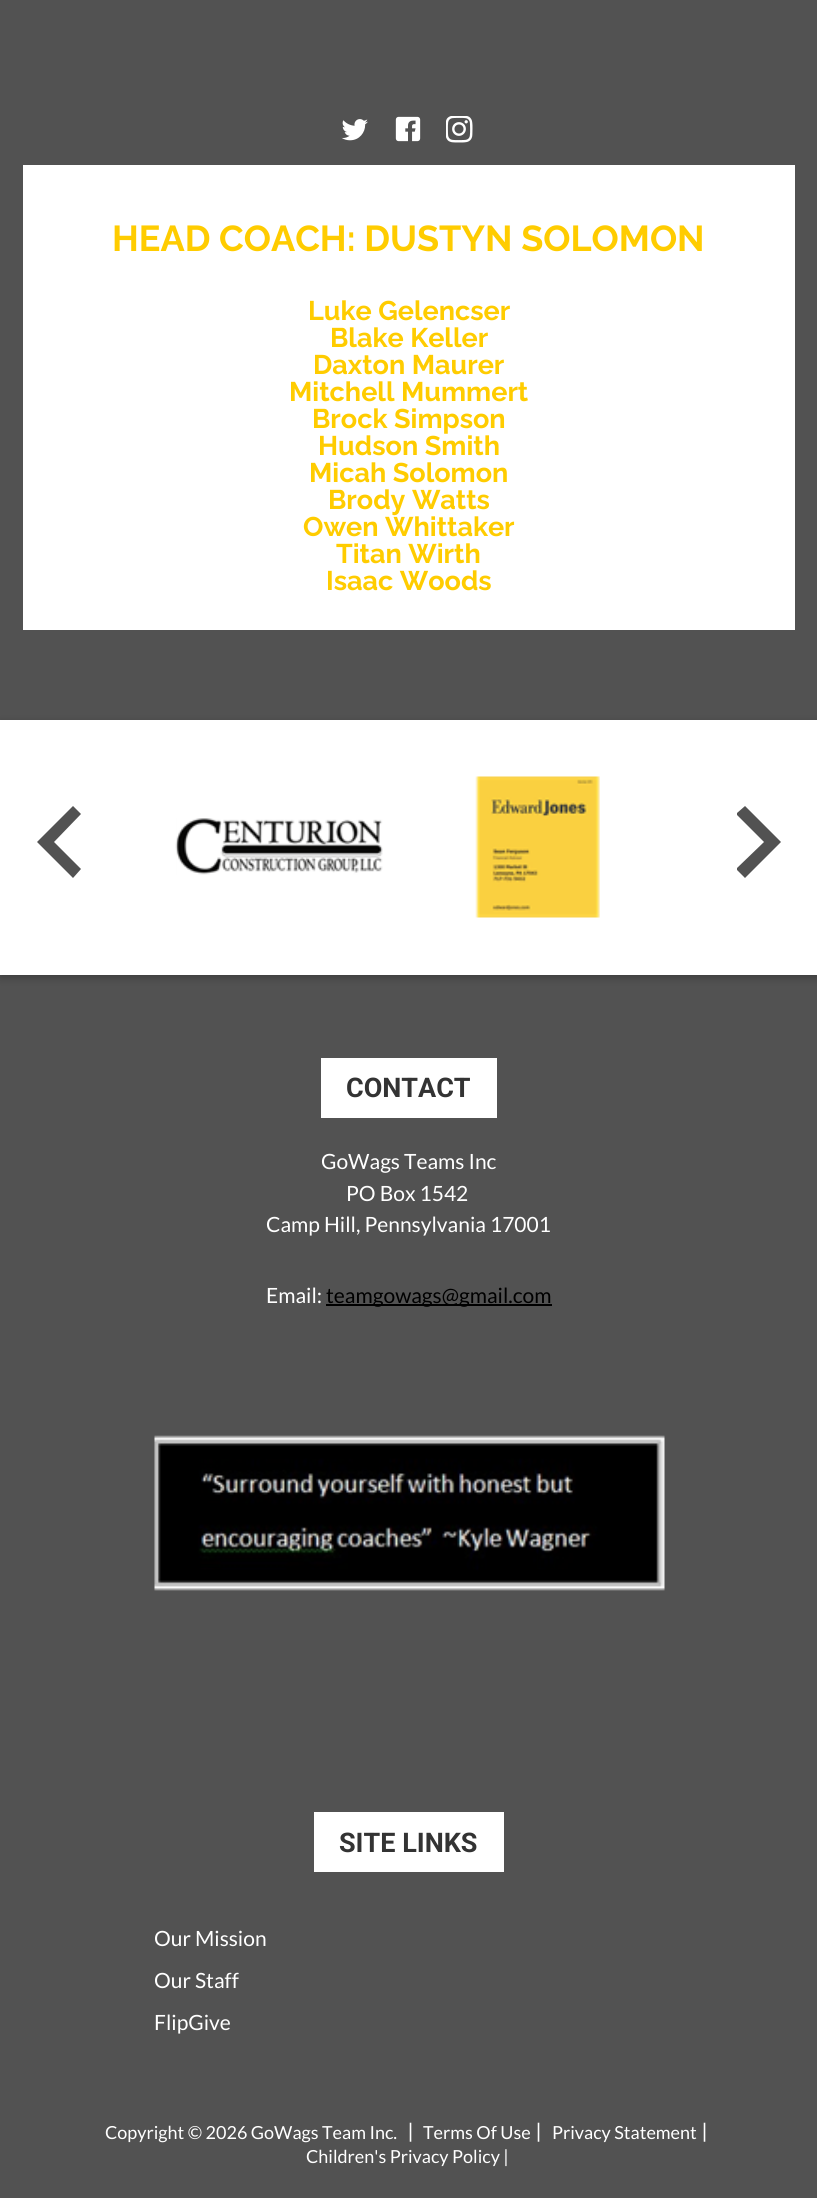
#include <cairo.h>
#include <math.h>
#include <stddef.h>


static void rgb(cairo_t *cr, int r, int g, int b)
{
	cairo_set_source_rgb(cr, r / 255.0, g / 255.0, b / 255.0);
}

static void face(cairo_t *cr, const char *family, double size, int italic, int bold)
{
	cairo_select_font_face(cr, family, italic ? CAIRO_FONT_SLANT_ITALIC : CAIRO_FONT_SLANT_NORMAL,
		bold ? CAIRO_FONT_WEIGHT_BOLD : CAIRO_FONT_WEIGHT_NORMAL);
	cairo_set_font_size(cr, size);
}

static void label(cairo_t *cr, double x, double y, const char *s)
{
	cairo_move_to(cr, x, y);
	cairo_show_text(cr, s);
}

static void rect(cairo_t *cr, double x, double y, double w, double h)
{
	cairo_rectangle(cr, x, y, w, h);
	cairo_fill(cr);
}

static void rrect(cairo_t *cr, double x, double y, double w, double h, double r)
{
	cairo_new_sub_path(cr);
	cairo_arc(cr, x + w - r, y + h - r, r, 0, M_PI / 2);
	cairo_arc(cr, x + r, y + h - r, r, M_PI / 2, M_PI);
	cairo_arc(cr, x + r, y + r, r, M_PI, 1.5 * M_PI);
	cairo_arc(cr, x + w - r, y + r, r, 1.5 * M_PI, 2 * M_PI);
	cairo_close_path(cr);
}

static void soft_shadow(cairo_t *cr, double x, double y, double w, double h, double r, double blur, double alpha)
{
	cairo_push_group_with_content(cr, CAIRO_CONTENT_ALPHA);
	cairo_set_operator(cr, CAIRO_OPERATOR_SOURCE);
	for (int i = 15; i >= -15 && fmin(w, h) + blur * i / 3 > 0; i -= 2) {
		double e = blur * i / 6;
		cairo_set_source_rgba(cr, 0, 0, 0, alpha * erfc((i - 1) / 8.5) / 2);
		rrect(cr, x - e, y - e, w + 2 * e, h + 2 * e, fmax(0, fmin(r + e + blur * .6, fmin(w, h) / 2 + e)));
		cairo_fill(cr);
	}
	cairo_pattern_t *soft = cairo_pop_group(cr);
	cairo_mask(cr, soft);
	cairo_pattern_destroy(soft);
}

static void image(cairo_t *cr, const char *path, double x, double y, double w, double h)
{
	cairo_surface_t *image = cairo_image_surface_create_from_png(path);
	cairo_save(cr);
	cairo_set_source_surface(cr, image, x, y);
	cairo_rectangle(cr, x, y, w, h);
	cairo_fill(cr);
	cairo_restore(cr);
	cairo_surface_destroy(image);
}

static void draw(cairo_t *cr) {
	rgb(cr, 82, 82, 82);
	cairo_paint(cr);
	image(cr, "image0.png", 341, 119, 27, 22);
	image(cr, "image1.png", 395, 116, 26, 26);
	image(cr, "image2.png", 446, 116, 27, 27);
	rgb(cr, 255, 255, 255);
	rect(cr, 23, 165, 772, 465);
	face(cr, "Raleway", 36, 0, 1);
	rgb(cr, 255, 204, 0);
	label(cr, 112, 251, "HEAD COACH: DUSTYN SOLOMON");
	face(cr, "Raleway", 27, 0, 1);
	label(cr, 308, 320, "Luke Gelencser");
	label(cr, 330, 347, "Blake Keller");
	label(cr, 313, 374, "Daxton Maurer");
	label(cr, 289, 401, "Mitchell Mummert");
	label(cr, 312, 428, "Brock Simpson");
	label(cr, 318, 455, "Hudson Smith");
	label(cr, 309, 482, "Micah Solomon");
	label(cr, 328, 509, "Brody Watts");
	label(cr, 303, 536, "Owen Whittaker");
	label(cr, 336, 563, "Titan Wirth");
	label(cr, 326, 590, "Isaac Woods");
	rgb(cr, 0, 0, 0);
	soft_shadow(cr, 0, 723, 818, 255, 0, 4, 0.26);
	rgb(cr, 255, 255, 255);
	rect(cr, 0, 720, 817, 255);
	rgb(cr, 82, 82, 82);
	cairo_new_path(cr);
	cairo_move_to(cr, 81, 869);
	cairo_line_to(cr, 54, 842);
	cairo_line_to(cr, 81, 814);
	cairo_line_to(cr, 73, 806);
	cairo_line_to(cr, 37, 842);
	cairo_line_to(cr, 73, 878);
	cairo_close_path(cr);
	cairo_fill(cr);
	image(cr, "image3.png", 175, 818, 208, 57);
	image(cr, "image4.png", 475, 776, 125, 142);
	cairo_new_path(cr);
	cairo_move_to(cr, 745, 878);
	cairo_line_to(cr, 737, 870);
	cairo_line_to(cr, 737, 868);
	cairo_line_to(cr, 764, 842);
	cairo_line_to(cr, 737, 815);
	cairo_line_to(cr, 737, 813);
	cairo_line_to(cr, 745, 806);
	cairo_line_to(cr, 781, 842);
	cairo_close_path(cr);
	cairo_fill(cr);
	rgb(cr, 255, 255, 255);
	rect(cr, 321, 1058, 176, 60);
	face(cr, "Roboto", 27, 0, 1);
	rgb(cr, 51, 51, 51);
	label(cr, 346, 1097, "CONTACT");
	face(cr, "Lato", 21, 0, 0);
	rgb(cr, 255, 255, 255);
	label(cr, 321, 1169, "GoWags Teams Inc");
	label(cr, 346, 1201, "PO Box 1542");
	label(cr, 266, 1232, "Camp Hill, Pennsylvania 17001");
	label(cr, 266, 1303, "Email:");
	rgb(cr, 0, 0, 0);
	rect(cr, 326, 1304, 226, 2);
	label(cr, 326, 1303, "teamgowags@gmail.com");
	image(cr, "image5.png", 154, 1435, 511, 156);
	rgb(cr, 255, 255, 255);
	rect(cr, 314, 1812, 190, 60);
	face(cr, "Roboto", 27, 0, 1);
	rgb(cr, 51, 51, 51);
	label(cr, 339, 1852, "SITE LINKS");
	cairo_save(cr);
	cairo_rectangle(cr, 155, 1923, 229, 30);
	cairo_clip(cr);
	face(cr, "Lato", 21, 0, 0);
	rgb(cr, 255, 255, 255);
	label(cr, 154, 1946, "Our Mission");
	cairo_restore(cr);
	cairo_save(cr);
	cairo_rectangle(cr, 155, 1965, 229, 30);
	cairo_clip(cr);
	face(cr, "Lato", 21, 0, 0);
	rgb(cr, 255, 255, 255);
	label(cr, 154, 1988, "Our Staff");
	cairo_restore(cr);
	face(cr, "Lato", 21, 0, 0);
	rgb(cr, 255, 255, 255);
	label(cr, 154, 2030, "FlipGive");
	face(cr, "Lato", 18, 0, 0);
	label(cr, 105, 2139, "Copyright © 2026 GoWags Team Inc.");
	face(cr, "Raleway Medium", 21, 0, 0);
	label(cr, 408, 2139, "|");
	face(cr, "Lato", 18, 0, 0);
	label(cr, 423, 2139, "Terms Of Use");
	face(cr, "Raleway Medium", 21, 0, 0);
	label(cr, 536, 2139, "|");
	face(cr, "Lato", 18, 0, 0);
	label(cr, 552, 2139, "Privacy Statement");
	face(cr, "Raleway Medium", 21, 0, 0);
	label(cr, 702, 2139, "|");
	face(cr, "Lato", 18, 0, 0);
	label(cr, 306, 2163, "Children's Privacy Policy |");
}

int main(void) {
	cairo_surface_t *surface = cairo_image_surface_create(CAIRO_FORMAT_RGB24, 817, 2198);
	cairo_t *cr = cairo_create(surface);
	cairo_font_options_t *options = cairo_font_options_create();
	cairo_font_options_set_hint_metrics(options, CAIRO_HINT_METRICS_OFF);
	cairo_font_options_set_hint_style(options, CAIRO_HINT_STYLE_NONE);
	cairo_set_font_options(cr, options);
	cairo_set_miter_limit(cr, 4);
	draw(cr);
	cairo_surface_write_to_png(surface, "render.png");
	cairo_font_options_destroy(options);
	cairo_destroy(cr);
	cairo_surface_destroy(surface);
	return 0;
}
